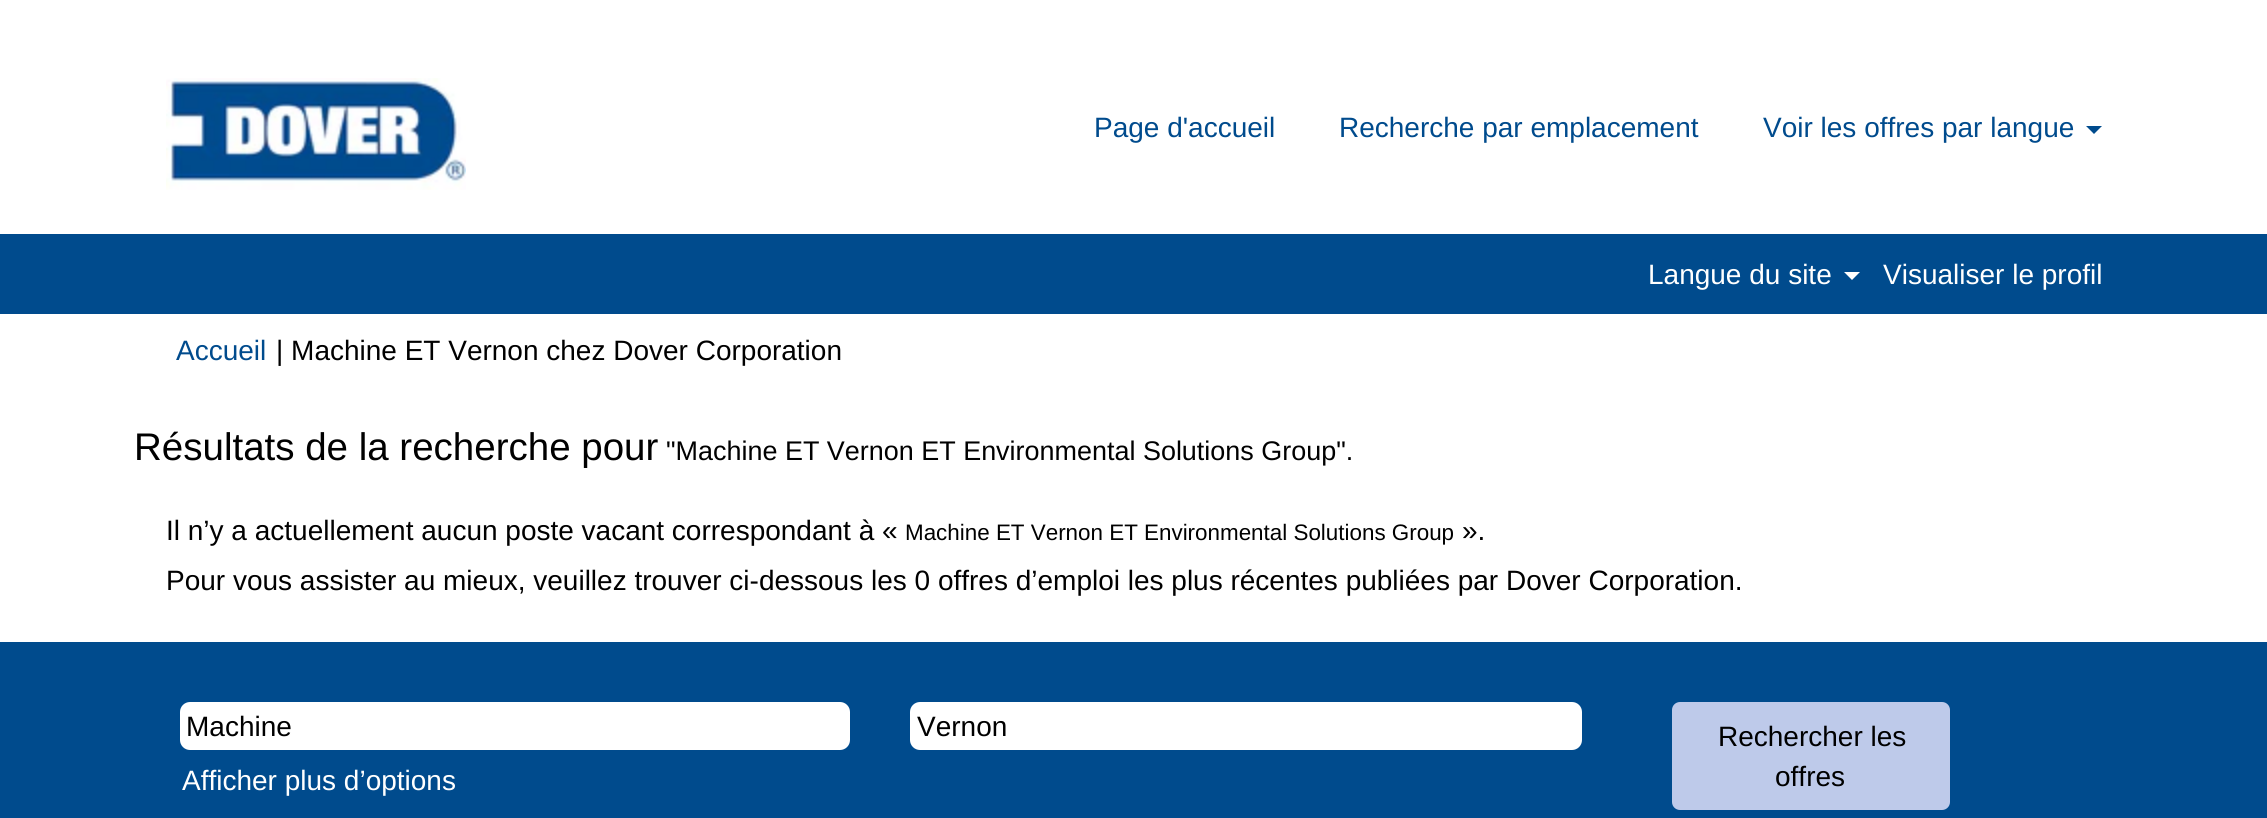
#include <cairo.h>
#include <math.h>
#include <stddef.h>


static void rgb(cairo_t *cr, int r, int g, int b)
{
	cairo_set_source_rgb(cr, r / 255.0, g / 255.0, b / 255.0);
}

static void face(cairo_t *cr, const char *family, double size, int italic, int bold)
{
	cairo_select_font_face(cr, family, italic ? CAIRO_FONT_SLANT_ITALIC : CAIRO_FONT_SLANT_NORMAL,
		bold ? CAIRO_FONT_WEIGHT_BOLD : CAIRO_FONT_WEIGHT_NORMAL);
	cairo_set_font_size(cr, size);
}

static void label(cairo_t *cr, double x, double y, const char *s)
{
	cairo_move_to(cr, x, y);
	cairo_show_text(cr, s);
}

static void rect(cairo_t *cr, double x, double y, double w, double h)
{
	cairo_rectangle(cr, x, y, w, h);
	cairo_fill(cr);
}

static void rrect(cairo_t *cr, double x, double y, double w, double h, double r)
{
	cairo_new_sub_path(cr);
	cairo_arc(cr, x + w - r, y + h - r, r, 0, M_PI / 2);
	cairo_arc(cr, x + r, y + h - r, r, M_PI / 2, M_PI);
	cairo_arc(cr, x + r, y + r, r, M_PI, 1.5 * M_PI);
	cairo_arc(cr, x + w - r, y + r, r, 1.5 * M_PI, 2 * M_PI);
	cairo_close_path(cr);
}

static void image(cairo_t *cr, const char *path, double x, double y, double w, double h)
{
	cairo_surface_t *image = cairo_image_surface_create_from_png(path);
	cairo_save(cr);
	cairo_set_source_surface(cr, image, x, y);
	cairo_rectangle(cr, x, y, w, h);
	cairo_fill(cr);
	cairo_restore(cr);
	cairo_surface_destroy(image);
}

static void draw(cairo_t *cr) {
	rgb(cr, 255, 255, 255);
	cairo_paint(cr);
	image(cr, "image0.png", 166, 78, 300, 112);
	face(cr, "Liberation Sans", 28, 0, 0);
	rgb(cr, 0, 75, 141);
	label(cr, 1094, 137, "Page d'accueil");
	label(cr, 1339, 137, "Recherche par emplacement");
	label(cr, 1763, 137, "Voir les offres par langue");
	cairo_new_path(cr);
	cairo_move_to(cr, 2086, 126);
	cairo_line_to(cr, 2102, 126);
	cairo_line_to(cr, 2094, 134);
	cairo_close_path(cr);
	cairo_fill(cr);
	rect(cr, 0, 234, 2267, 80);
	rgb(cr, 255, 255, 255);
	label(cr, 1648, 284, "Langue du site");
	cairo_new_path(cr);
	cairo_move_to(cr, 1844, 272);
	cairo_line_to(cr, 1860, 272);
	cairo_line_to(cr, 1852, 280);
	cairo_close_path(cr);
	cairo_fill(cr);
	label(cr, 1883, 284, "Visualiser le profil");
	rgb(cr, 0, 75, 141);
	label(cr, 176, 360, "Accueil");
	rgb(cr, 0, 0, 0);
	label(cr, 276, 360, "| Machine ET Vernon chez Dover Corporation");
	face(cr, "Liberation Sans", 38.5, 0, 0);
	label(cr, 134, 460, "Résultats de la recherche pour");
	face(cr, "Liberation Sans", 26.95, 0, 0);
	label(cr, 666, 460, "\"Machine ET Vernon ET Environmental Solutions Group\".");
	face(cr, "Liberation Sans", 28, 0, 0);
	label(cr, 166, 540, "Il n’y a actuellement aucun poste vacant correspondant à «");
	face(cr, "Liberation Sans", 22.4, 0, 0);
	label(cr, 905, 540, "Machine ET Vernon ET Environmental Solutions Group");
	face(cr, "Liberation Sans", 28, 0, 0);
	label(cr, 1462, 540, "».");
	label(cr, 166, 590, "Pour vous assister au mieux, veuillez trouver ci-dessous les 0 offres d’emploi les plus récentes publiées par Dover Corporation.");
	rgb(cr, 0, 75, 141);
	rect(cr, 0, 642, 2267, 176);
	rgb(cr, 255, 255, 255);
	rrect(cr, 180, 702, 670, 48, 10);
	cairo_fill(cr);
	rgb(cr, 0, 0, 0);
	label(cr, 186, 736, "Machine");
	rgb(cr, 255, 255, 255);
	rrect(cr, 910, 702, 672, 48, 10);
	cairo_fill(cr);
	rgb(cr, 0, 0, 0);
	label(cr, 917, 736, "Vernon");
	rgb(cr, 255, 255, 255);
	label(cr, 182, 790, "Afficher plus d’options");
	rgb(cr, 190, 202, 234);
	rrect(cr, 1672, 702, 278, 108, 8);
	cairo_fill(cr);
	rgb(cr, 0, 0, 0);
	label(cr, 1718, 746, "Rechercher les");
	label(cr, 1775, 786, "offres");
}

int main(void) {
	cairo_surface_t *surface = cairo_image_surface_create(CAIRO_FORMAT_RGB24, 2267, 818);
	cairo_t *cr = cairo_create(surface);
	cairo_font_options_t *options = cairo_font_options_create();
	cairo_font_options_set_hint_metrics(options, CAIRO_HINT_METRICS_OFF);
	cairo_font_options_set_hint_style(options, CAIRO_HINT_STYLE_NONE);
	cairo_set_font_options(cr, options);
	cairo_set_miter_limit(cr, 4);
	draw(cr);
	cairo_surface_write_to_png(surface, "render.png");
	cairo_font_options_destroy(options);
	cairo_destroy(cr);
	cairo_surface_destroy(surface);
	return 0;
}
